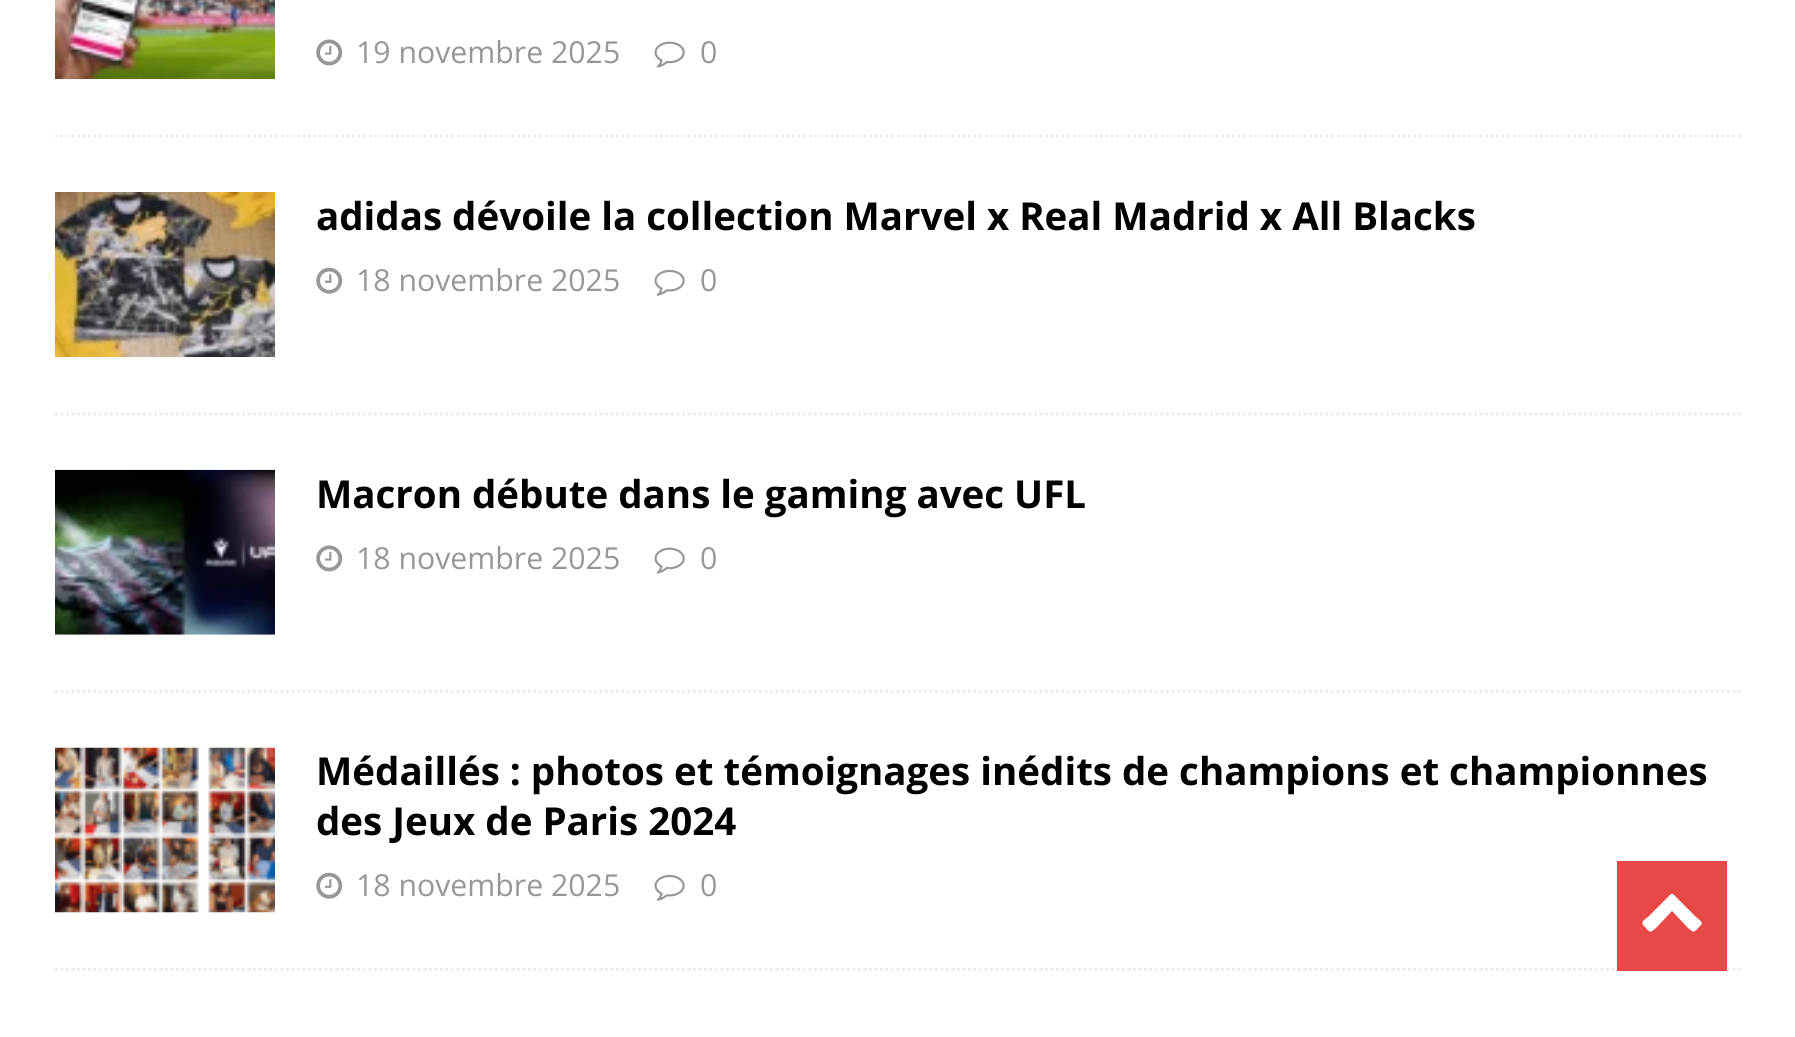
#include <cairo.h>
#include <math.h>
#include <stddef.h>


static void rgb(cairo_t *cr, int r, int g, int b)
{
	cairo_set_source_rgb(cr, r / 255.0, g / 255.0, b / 255.0);
}

static void face(cairo_t *cr, const char *family, double size, int italic, int bold)
{
	cairo_select_font_face(cr, family, italic ? CAIRO_FONT_SLANT_ITALIC : CAIRO_FONT_SLANT_NORMAL,
		bold ? CAIRO_FONT_WEIGHT_BOLD : CAIRO_FONT_WEIGHT_NORMAL);
	cairo_set_font_size(cr, size);
}

static void label(cairo_t *cr, double x, double y, const char *s)
{
	cairo_move_to(cr, x, y);
	cairo_show_text(cr, s);
}

static void rect(cairo_t *cr, double x, double y, double w, double h)
{
	cairo_rectangle(cr, x, y, w, h);
	cairo_fill(cr);
}

static void image(cairo_t *cr, const char *path, double x, double y, double w, double h)
{
	cairo_surface_t *image = cairo_image_surface_create_from_png(path);
	cairo_save(cr);
	cairo_set_source_surface(cr, image, x, y);
	cairo_rectangle(cr, x, y, w, h);
	cairo_fill(cr);
	cairo_restore(cr);
	cairo_surface_destroy(image);
}

static void draw(cairo_t *cr) {
	rgb(cr, 255, 255, 255);
	cairo_paint(cr);
	cairo_new_path(cr);
	cairo_move_to(cr, 55, 136);
	cairo_line_to(cr, 1741, 136);
	rgb(cr, 235, 235, 235);
	cairo_set_line_width(cr, 2.8);
	cairo_set_dash(cr, (double[]){2.75, 2.75}, 2, 0);
	cairo_stroke(cr);
	image(cr, "image0.png", 55, 0, 220, 80);
	image(cr, "image1.png", 316, 39, 27, 27);
	face(cr, "Open Sans", 30.25, 0, 0);
	rgb(cr, 151, 151, 151);
	label(cr, 356, 63, "19 novembre 2025");
	image(cr, "image2.png", 654, 41, 31, 27);
	label(cr, 700, 63, "0");
	cairo_new_path(cr);
	cairo_move_to(cr, 55, 414);
	cairo_line_to(cr, 1741, 414);
	rgb(cr, 235, 235, 235);
	cairo_stroke(cr);
	image(cr, "image3.png", 55, 192, 220, 165);
	face(cr, "Open Sans", 38.5, 0, 1);
	rgb(cr, 0, 0, 0);
	label(cr, 316, 230, "adidas dévoile la collection Marvel x Real Madrid x All Blacks");
	image(cr, "image4.png", 316, 267, 27, 27);
	face(cr, "Open Sans", 30.25, 0, 0);
	rgb(cr, 151, 151, 151);
	label(cr, 356, 291, "18 novembre 2025");
	image(cr, "image5.png", 654, 269, 31, 27);
	label(cr, 700, 291, "0");
	cairo_new_path(cr);
	cairo_move_to(cr, 55, 691.5);
	cairo_line_to(cr, 1741, 691.5);
	rgb(cr, 235, 235, 235);
	cairo_stroke(cr);
	image(cr, "image6.png", 55, 469, 220, 166);
	face(cr, "Open Sans", 38.5, 0, 1);
	rgb(cr, 0, 0, 0);
	label(cr, 316, 508, "Macron débute dans le gaming avec UFL");
	image(cr, "image1.png", 316, 545, 27, 27);
	face(cr, "Open Sans", 30.25, 0, 0);
	rgb(cr, 151, 151, 151);
	label(cr, 356, 569, "18 novembre 2025");
	image(cr, "image2.png", 654, 547, 31, 27);
	label(cr, 700, 569, "0");
	cairo_new_path(cr);
	cairo_move_to(cr, 55, 969.5);
	cairo_line_to(cr, 1741, 969.5);
	rgb(cr, 235, 235, 235);
	cairo_stroke(cr);
	image(cr, "image7.png", 55, 747, 220, 166);
	face(cr, "Open Sans", 38.5, 0, 1);
	rgb(cr, 0, 0, 0);
	label(cr, 316, 785, "Médaillés : photos et témoignages inédits de champions et championnes");
	label(cr, 316, 835, "des Jeux de Paris 2024");
	image(cr, "image4.png", 316, 872, 27, 27);
	face(cr, "Open Sans", 30.25, 0, 0);
	rgb(cr, 151, 151, 151);
	label(cr, 356, 896, "18 novembre 2025");
	image(cr, "image5.png", 654, 874, 31, 27);
	label(cr, 700, 896, "0");
	rgb(cr, 230, 73, 70);
	rect(cr, 1617, 861, 110, 110);
	rgb(cr, 255, 255, 255);
	cairo_new_path(cr);
	cairo_move_to(cr, 1701, 925);
	cairo_curve_to(cr, 1694, 932, 1695, 934, 1688, 928);
	cairo_line_to(cr, 1672, 911);
	cairo_line_to(cr, 1656, 928);
	cairo_curve_to(cr, 1649, 934, 1650, 932, 1644, 926);
	cairo_curve_to(cr, 1640, 922, 1644, 920, 1648, 917);
	cairo_line_to(cr, 1666, 899);
	cairo_curve_to(cr, 1673, 892, 1671, 892, 1678, 899);
	cairo_line_to(cr, 1696, 917);
	cairo_curve_to(cr, 1697, 918, 1704, 922, 1701, 925);
	cairo_close_path(cr);
	cairo_fill(cr);
}

int main(void) {
	cairo_surface_t *surface = cairo_image_surface_create(CAIRO_FORMAT_RGB24, 1795, 1037);
	cairo_t *cr = cairo_create(surface);
	cairo_font_options_t *options = cairo_font_options_create();
	cairo_font_options_set_hint_metrics(options, CAIRO_HINT_METRICS_OFF);
	cairo_font_options_set_hint_style(options, CAIRO_HINT_STYLE_NONE);
	cairo_set_font_options(cr, options);
	cairo_set_miter_limit(cr, 4);
	draw(cr);
	cairo_surface_write_to_png(surface, "render.png");
	cairo_font_options_destroy(options);
	cairo_destroy(cr);
	cairo_surface_destroy(surface);
	return 0;
}
